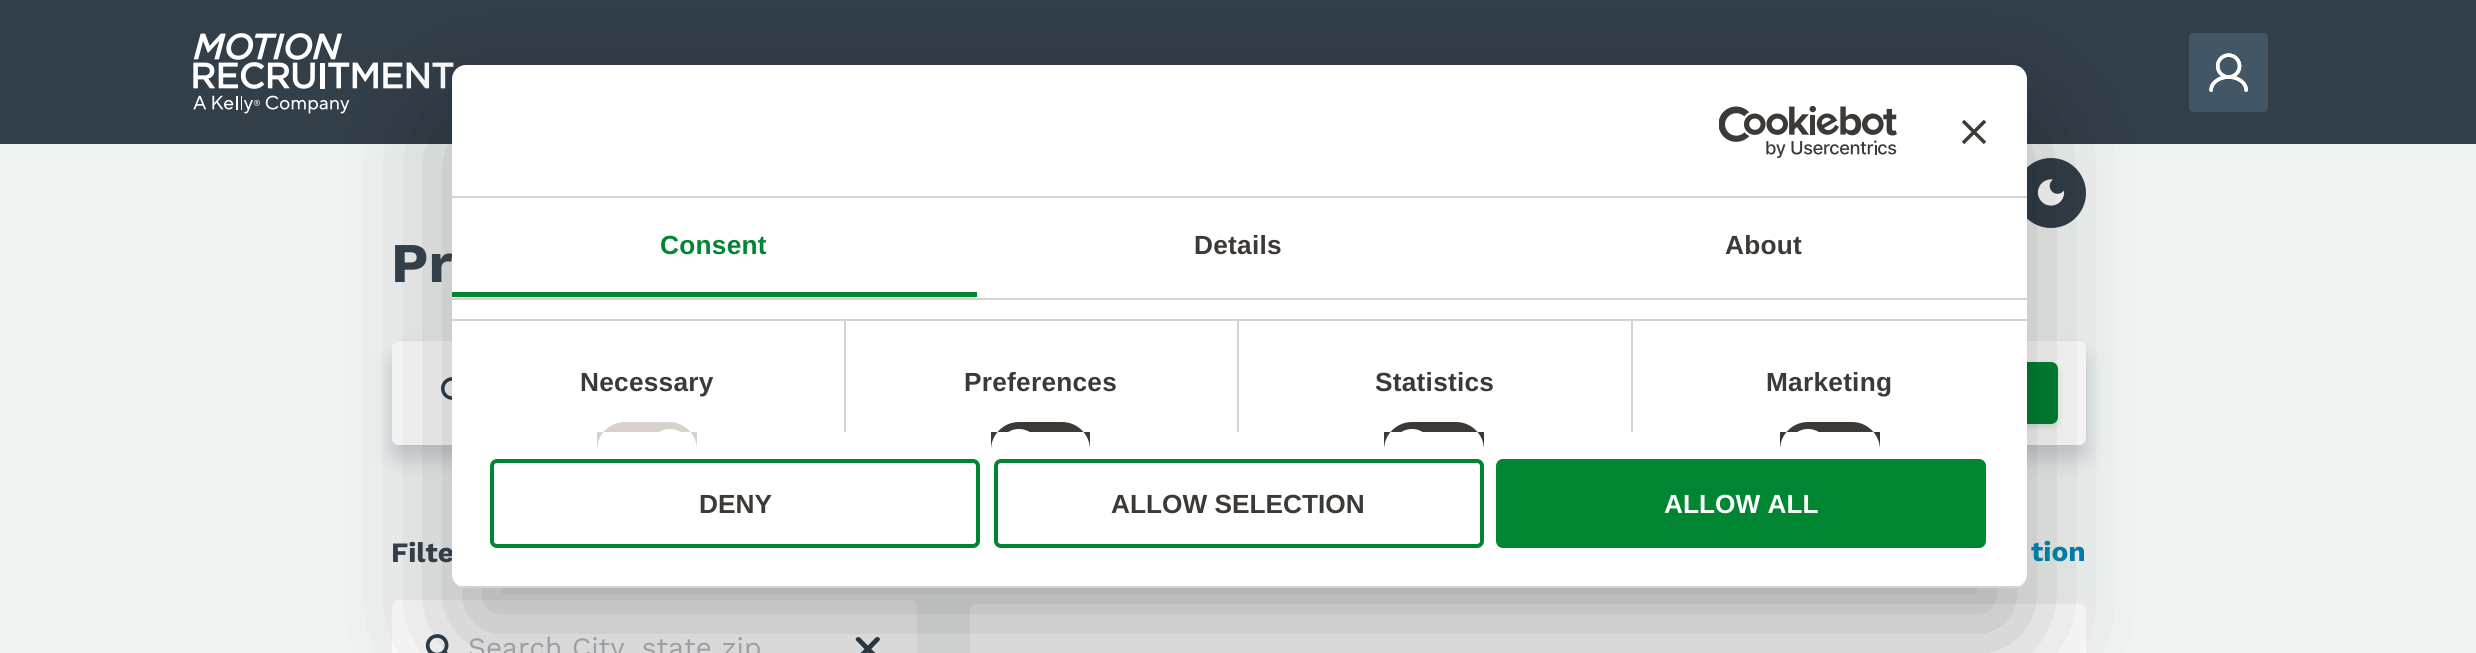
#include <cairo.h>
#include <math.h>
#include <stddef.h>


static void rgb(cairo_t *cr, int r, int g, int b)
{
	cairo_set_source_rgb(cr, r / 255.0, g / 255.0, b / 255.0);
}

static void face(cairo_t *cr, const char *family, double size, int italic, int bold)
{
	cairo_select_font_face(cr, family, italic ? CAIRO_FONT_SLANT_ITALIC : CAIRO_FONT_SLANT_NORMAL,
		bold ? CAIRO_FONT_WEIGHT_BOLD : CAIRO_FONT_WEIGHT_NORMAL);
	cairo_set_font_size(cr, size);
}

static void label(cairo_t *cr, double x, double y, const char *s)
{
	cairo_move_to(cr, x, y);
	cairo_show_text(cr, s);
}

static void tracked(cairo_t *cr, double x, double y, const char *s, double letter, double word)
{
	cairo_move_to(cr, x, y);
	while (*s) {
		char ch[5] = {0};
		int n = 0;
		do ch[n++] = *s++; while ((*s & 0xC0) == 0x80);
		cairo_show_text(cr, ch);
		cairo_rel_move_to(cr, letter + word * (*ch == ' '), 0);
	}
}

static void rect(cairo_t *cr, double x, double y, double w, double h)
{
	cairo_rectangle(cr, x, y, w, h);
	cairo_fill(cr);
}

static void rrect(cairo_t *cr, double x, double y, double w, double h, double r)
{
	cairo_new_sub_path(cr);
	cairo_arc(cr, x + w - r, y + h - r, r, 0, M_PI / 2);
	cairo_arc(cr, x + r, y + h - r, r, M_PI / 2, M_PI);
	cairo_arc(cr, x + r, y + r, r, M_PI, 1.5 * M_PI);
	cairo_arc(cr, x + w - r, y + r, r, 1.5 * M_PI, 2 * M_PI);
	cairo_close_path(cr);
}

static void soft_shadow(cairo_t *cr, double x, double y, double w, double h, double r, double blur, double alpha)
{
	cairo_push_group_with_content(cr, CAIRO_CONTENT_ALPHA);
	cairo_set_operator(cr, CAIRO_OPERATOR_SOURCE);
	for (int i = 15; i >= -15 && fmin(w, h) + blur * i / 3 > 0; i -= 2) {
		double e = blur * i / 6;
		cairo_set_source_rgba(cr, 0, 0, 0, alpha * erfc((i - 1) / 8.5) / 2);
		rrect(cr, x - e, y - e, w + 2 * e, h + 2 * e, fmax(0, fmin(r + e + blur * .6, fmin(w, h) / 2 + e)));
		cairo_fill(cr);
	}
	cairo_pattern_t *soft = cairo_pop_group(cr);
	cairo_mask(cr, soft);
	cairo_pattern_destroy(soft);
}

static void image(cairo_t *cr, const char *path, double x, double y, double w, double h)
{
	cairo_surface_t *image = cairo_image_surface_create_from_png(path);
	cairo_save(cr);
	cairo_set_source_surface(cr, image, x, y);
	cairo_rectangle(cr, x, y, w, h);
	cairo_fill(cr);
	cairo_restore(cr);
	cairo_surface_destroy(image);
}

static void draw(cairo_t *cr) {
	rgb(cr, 241, 244, 243);
	cairo_paint(cr);
	rgb(cr, 50, 62, 72);
	rect(cr, 0, 0, 2476, 144);
	image(cr, "image0.png", 193, 33, 261, 81);
	rgb(cr, 66, 86, 101);
	rrect(cr, 2189, 33, 79, 79, 4);
	cairo_fill(cr);
	image(cr, "image1.png", 2209, 53, 39, 39);
	rgb(cr, 50, 62, 72);
	cairo_arc(cr, 2051, 193, 35, 0, 2 * M_PI);
	cairo_fill(cr);
	image(cr, "image2.png", 2037, 179, 28, 27);
	rgb(cr, 199, 206, 213);
	soft_shadow(cr, 392, 355, 1694, 104, 7, 10.5, 1);
	rgb(cr, 255, 255, 255);
	rrect(cr, 392, 341, 1694, 104, 7);
	cairo_fill(cr);
	image(cr, "image5.png", 441, 377, 11, 23);
	rgb(cr, 18, 55, 5);
	soft_shadow(cr, 1906, 366, 152, 61, 7, 3.5, 0.15);
	rgb(cr, 0, 133, 51);
	rrect(cr, 1906, 362, 152, 62, 7);
	cairo_fill(cr);
	rgb(cr, 255, 255, 255);
	rrect(cr, 392, 600, 525, 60, 7);
	cairo_fill(cr);
	image(cr, "image6.png", 425, 634, 24, 19);
	image(cr, "image7.png", 855, 637, 25, 16);
	rrect(cr, 970, 604, 1116, 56, 7);
	cairo_fill(cr);
	rgb(cr, 0, 0, 0);
	soft_shadow(cr, 452, 121, 1575, 523, 14, 59.5, 0.3);
	face(cr, "Work Sans", 56, 0, 1);
	rgb(cr, 50, 62, 72);
	label(cr, 391, 282, "Pr");
	face(cr, "Work Sans", 28, 0, 1);
	label(cr, 391, 562, "Filte");
	rgb(cr, 255, 255, 255);
	rrect(cr, 452, 65, 1575, 523, 14);
	cairo_fill(cr);
	rgb(cr, 215, 210, 203);
	rect(cr, 452, 196, 1575, 2);
	image(cr, "image3.png", 1719, 105, 178, 53);
	image(cr, "image4.png", 1962, 119, 24, 25);
	rect(cr, 452, 298, 1575, 2);
	rgb(cr, 0, 134, 50);
	rect(cr, 452, 292, 525, 5);
	face(cr, "Liberation Sans", 26.25, 0, 1);
	tracked(cr, 660, 254, "Consent", 0.25, 0);
	rgb(cr, 61, 57, 54);
	tracked(cr, 1194, 254, "Details", 0.25, 0);
	tracked(cr, 1725, 254, "About", 0.25, 0);
	rgb(cr, 215, 210, 203);
	rect(cr, 844, 320, 2, 112);
	rect(cr, 1237, 320, 2, 112);
	rect(cr, 1631, 320, 2, 112);
	rect(cr, 452, 319, 1575, 2);
	rgb(cr, 61, 57, 54);
	tracked(cr, 580, 391, "Necessary", 0.25, 0);
	rgb(cr, 215, 210, 203);
	cairo_new_path(cr);
	cairo_move_to(cr, 625, 422);
	cairo_line_to(cr, 669, 422);
	cairo_curve_to(cr, 684.5, 422, 697, 434.5, 697, 450);
	cairo_line_to(cr, 697, 432);
	cairo_line_to(cr, 597, 432);
	cairo_line_to(cr, 597, 450);
	cairo_curve_to(cr, 597, 434.5, 609.5, 422, 625, 422);
	cairo_close_path(cr);
	cairo_fill(cr);
	rgb(cr, 255, 255, 255);
	cairo_new_path(cr);
	cairo_move_to(cr, 670, 429);
	cairo_curve_to(cr, 681.5, 429, 691, 438.5, 691, 450);
	cairo_line_to(cr, 691, 432);
	cairo_line_to(cr, 649, 432);
	cairo_line_to(cr, 649, 450);
	cairo_curve_to(cr, 649, 438.5, 658.5, 429, 670, 429);
	cairo_close_path(cr);
	cairo_fill(cr);
	rgb(cr, 61, 57, 54);
	tracked(cr, 964, 391, "Preferences", 0.25, 0);
	cairo_new_path(cr);
	cairo_move_to(cr, 1019, 422);
	cairo_line_to(cr, 1062, 422);
	cairo_curve_to(cr, 1077.5, 422, 1090, 434.5, 1090, 450);
	cairo_line_to(cr, 1090, 432);
	cairo_line_to(cr, 991, 432);
	cairo_line_to(cr, 991, 450);
	cairo_curve_to(cr, 991, 434.5, 1003.5, 422, 1019, 422);
	cairo_close_path(cr);
	cairo_fill(cr);
	rgb(cr, 255, 255, 255);
	cairo_new_path(cr);
	cairo_move_to(cr, 1019, 429);
	cairo_curve_to(cr, 1030.5, 429, 1040, 438.5, 1040, 450);
	cairo_line_to(cr, 1040, 432);
	cairo_line_to(cr, 998, 432);
	cairo_line_to(cr, 998, 450);
	cairo_curve_to(cr, 998, 438.5, 1007.5, 429, 1019, 429);
	cairo_close_path(cr);
	cairo_fill(cr);
	rgb(cr, 61, 57, 54);
	tracked(cr, 1375, 391, "Statistics", 0.25, 0);
	cairo_new_path(cr);
	cairo_move_to(cr, 1412, 422);
	cairo_line_to(cr, 1456, 422);
	cairo_curve_to(cr, 1471.5, 422, 1484, 434.5, 1484, 450);
	cairo_line_to(cr, 1484, 432);
	cairo_line_to(cr, 1384, 432);
	cairo_line_to(cr, 1384, 450);
	cairo_curve_to(cr, 1384, 434.5, 1396.5, 422, 1412, 422);
	cairo_close_path(cr);
	cairo_fill(cr);
	rgb(cr, 255, 255, 255);
	cairo_new_path(cr);
	cairo_move_to(cr, 1412, 429);
	cairo_curve_to(cr, 1423.5, 429, 1433, 438.5, 1433, 450);
	cairo_line_to(cr, 1433, 432);
	cairo_line_to(cr, 1391, 432);
	cairo_line_to(cr, 1391, 450);
	cairo_curve_to(cr, 1391, 438.5, 1400.5, 429, 1412, 429);
	cairo_close_path(cr);
	cairo_fill(cr);
	rgb(cr, 61, 57, 54);
	tracked(cr, 1766, 391, "Marketing", 0.25, 0);
	cairo_new_path(cr);
	cairo_move_to(cr, 1808, 422);
	cairo_line_to(cr, 1852, 422);
	cairo_curve_to(cr, 1867.5, 422, 1880, 434.5, 1880, 450);
	cairo_line_to(cr, 1880, 432);
	cairo_line_to(cr, 1780, 432);
	cairo_line_to(cr, 1780, 450);
	cairo_curve_to(cr, 1780, 434.5, 1792.5, 422, 1808, 422);
	cairo_close_path(cr);
	cairo_fill(cr);
	rgb(cr, 255, 255, 255);
	cairo_new_path(cr);
	cairo_move_to(cr, 1808, 429);
	cairo_curve_to(cr, 1819.5, 429, 1829, 438.5, 1829, 450);
	cairo_line_to(cr, 1829, 432);
	cairo_line_to(cr, 1787, 432);
	cairo_line_to(cr, 1787, 450);
	cairo_curve_to(cr, 1787, 438.5, 1796.5, 429, 1808, 429);
	cairo_close_path(cr);
	cairo_fill(cr);
	cairo_save(cr);
	rrect(cr, 452, 65, 1575, 523, 14);
	cairo_clip(cr);
	rgb(cr, 215, 210, 203);
	rect(cr, 452, 586, 1575, 2);
	cairo_restore(cr);
	rrect(cr, 492, 461, 486, 85, 5);
	rgb(cr, 0, 134, 50);
	cairo_set_line_width(cr, 4);
	cairo_stroke(cr);
	rgb(cr, 61, 57, 54);
	label(cr, 699, 513, "DENY");
	rrect(cr, 996, 461, 486, 85, 5);
	rgb(cr, 0, 134, 50);
	cairo_stroke(cr);
	rgb(cr, 61, 57, 54);
	label(cr, 1111, 513, "ALLOW SELECTION");
	rgb(cr, 0, 134, 50);
	rrect(cr, 1498, 461, 486, 85, 5);
	cairo_fill_preserve(cr);
	cairo_stroke(cr);
	rgb(cr, 255, 255, 255);
	label(cr, 1664, 513, "ALLOW ALL");
	face(cr, "Work Sans", 28, 0, 0);
	rgb(cr, 153, 159, 164);
	label(cr, 468, 657, "Search City, state zip");
	face(cr, "Work Sans", 28, 0, 1);
	rgb(cr, 0, 125, 165);
	label(cr, 2031, 561, "tion");
}

int main(void) {
	cairo_surface_t *surface = cairo_image_surface_create(CAIRO_FORMAT_RGB24, 2476, 653);
	cairo_t *cr = cairo_create(surface);
	cairo_font_options_t *options = cairo_font_options_create();
	cairo_font_options_set_hint_metrics(options, CAIRO_HINT_METRICS_OFF);
	cairo_font_options_set_hint_style(options, CAIRO_HINT_STYLE_NONE);
	cairo_set_font_options(cr, options);
	cairo_set_miter_limit(cr, 4);
	draw(cr);
	cairo_surface_write_to_png(surface, "render.png");
	cairo_font_options_destroy(options);
	cairo_destroy(cr);
	cairo_surface_destroy(surface);
	return 0;
}
